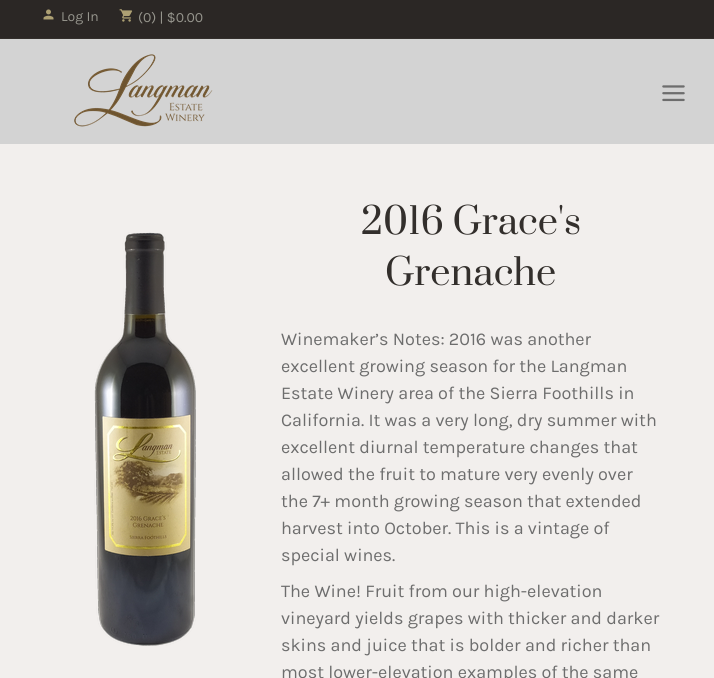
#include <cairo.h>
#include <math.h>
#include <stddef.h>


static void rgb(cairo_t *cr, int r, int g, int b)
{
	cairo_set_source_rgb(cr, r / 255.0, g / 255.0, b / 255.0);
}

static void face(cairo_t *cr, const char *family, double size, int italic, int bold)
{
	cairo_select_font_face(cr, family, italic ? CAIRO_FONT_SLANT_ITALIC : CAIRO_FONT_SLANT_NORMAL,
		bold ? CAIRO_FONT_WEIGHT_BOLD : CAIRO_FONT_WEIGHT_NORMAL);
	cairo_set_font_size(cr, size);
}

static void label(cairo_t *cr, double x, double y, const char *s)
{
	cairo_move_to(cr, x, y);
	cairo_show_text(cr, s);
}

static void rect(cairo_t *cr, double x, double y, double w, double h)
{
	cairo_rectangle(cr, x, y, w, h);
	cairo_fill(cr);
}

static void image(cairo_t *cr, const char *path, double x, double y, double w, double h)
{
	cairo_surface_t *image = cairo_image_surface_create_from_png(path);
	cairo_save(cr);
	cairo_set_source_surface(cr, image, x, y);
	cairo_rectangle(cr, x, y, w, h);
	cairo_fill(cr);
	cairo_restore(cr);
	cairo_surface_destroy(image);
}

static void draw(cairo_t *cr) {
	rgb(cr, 242, 239, 237);
	cairo_paint(cr);
	rgb(cr, 211, 211, 211);
	rect(cr, 0, 39, 714, 105);
	rgb(cr, 43, 39, 37);
	rect(cr, 0, 0, 714, 38);
	rgb(cr, 51, 47, 44);
	rect(cr, 0, 38, 714, 1);
	image(cr, "image0.png", 43, 9, 11, 11);
	face(cr, "Karla", 14, 0, 0);
	rgb(cr, 150, 149, 141);
	label(cr, 61, 21, "Log In");
	image(cr, "image1.png", 119, 9, 14, 13);
	label(cr, 138, 22, "(0) | $0.00");
	image(cr, "image2.png", 74, 54, 139, 73);
	image(cr, "image3.png", 662, 85, 23, 17);
	image(cr, "image4.png", 94, 232, 102, 414);
	face(cr, "Prata", 36, 0, 0);
	rgb(cr, 51, 47, 44);
	label(cr, 361, 234, "2016 Grace's");
	label(cr, 385, 285, "Grenache");
	face(cr, "Karla", 18, 0, 0);
	rgb(cr, 109, 109, 109);
	label(cr, 281, 345, "Winemaker’s Notes: 2016 was another");
	label(cr, 281, 372, "excellent growing season for the Langman");
	label(cr, 281, 399, "Estate Winery area of the Sierra Foothills in");
	label(cr, 281, 426, "California. It was a very long, dry summer with");
	label(cr, 281, 453, "excellent diurnal temperature changes that");
	label(cr, 281, 480, "allowed the fruit to mature very evenly over");
	label(cr, 281, 507, "the 7+ month growing season that extended");
	label(cr, 281, 534, "harvest into October. This is a vintage of");
	label(cr, 281, 561, "special wines.");
	label(cr, 281, 597, "The Wine! Fruit from our high-elevation");
	label(cr, 281, 624, "vineyard yields grapes with thicker and darker");
	label(cr, 281, 651, "skins and juice that is bolder and richer than");
	label(cr, 281, 678, "most lower-elevation examples of the same");
}

int main(void) {
	cairo_surface_t *surface = cairo_image_surface_create(CAIRO_FORMAT_RGB24, 714, 678);
	cairo_t *cr = cairo_create(surface);
	cairo_font_options_t *options = cairo_font_options_create();
	cairo_font_options_set_hint_metrics(options, CAIRO_HINT_METRICS_OFF);
	cairo_font_options_set_hint_style(options, CAIRO_HINT_STYLE_NONE);
	cairo_set_font_options(cr, options);
	cairo_set_miter_limit(cr, 4);
	draw(cr);
	cairo_surface_write_to_png(surface, "render.png");
	cairo_font_options_destroy(options);
	cairo_destroy(cr);
	cairo_surface_destroy(surface);
	return 0;
}
